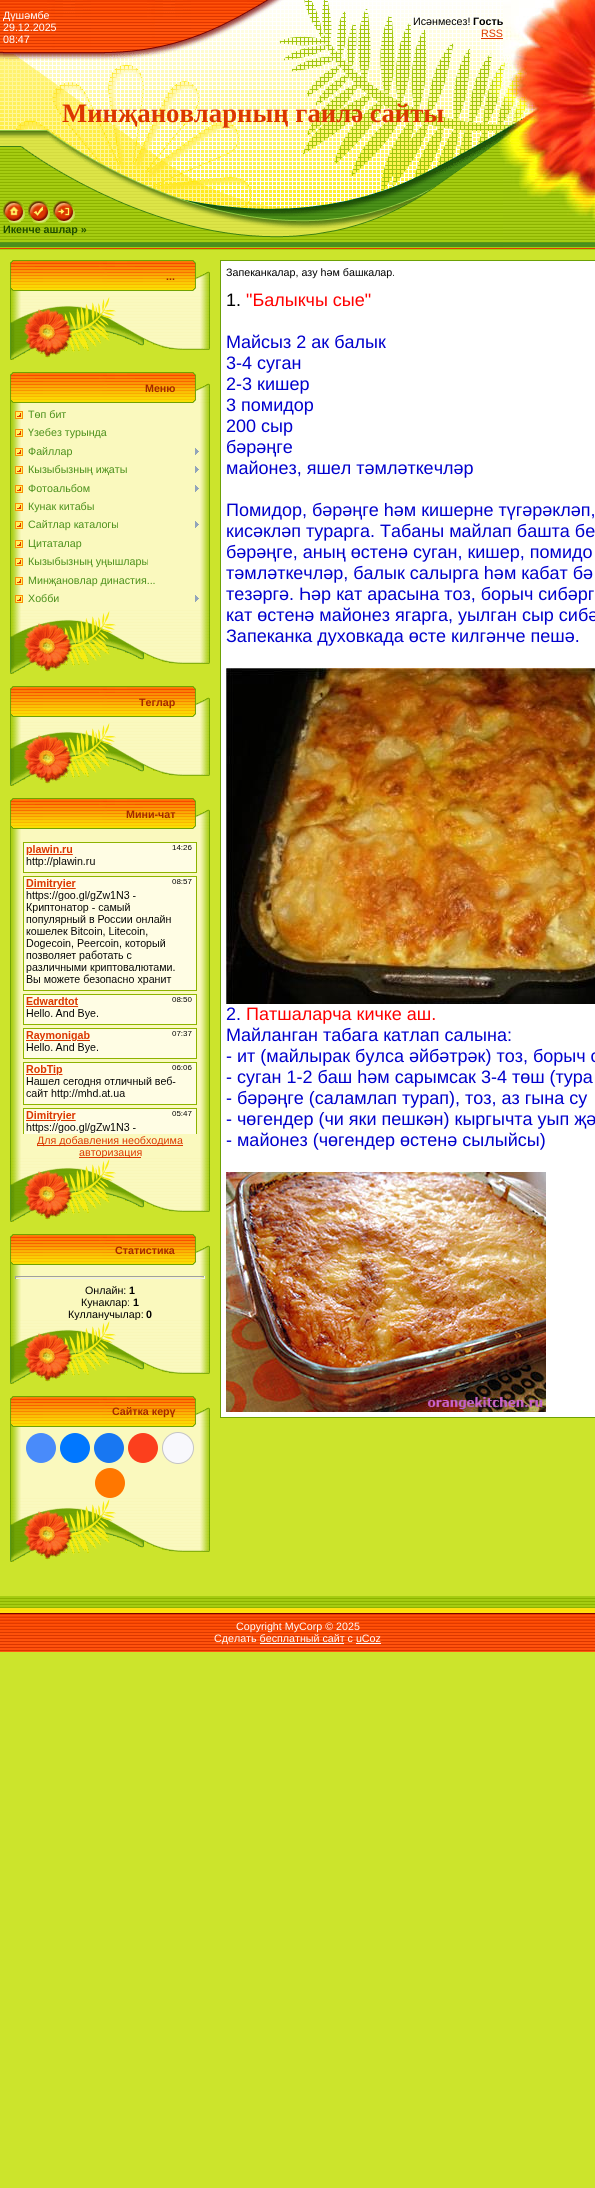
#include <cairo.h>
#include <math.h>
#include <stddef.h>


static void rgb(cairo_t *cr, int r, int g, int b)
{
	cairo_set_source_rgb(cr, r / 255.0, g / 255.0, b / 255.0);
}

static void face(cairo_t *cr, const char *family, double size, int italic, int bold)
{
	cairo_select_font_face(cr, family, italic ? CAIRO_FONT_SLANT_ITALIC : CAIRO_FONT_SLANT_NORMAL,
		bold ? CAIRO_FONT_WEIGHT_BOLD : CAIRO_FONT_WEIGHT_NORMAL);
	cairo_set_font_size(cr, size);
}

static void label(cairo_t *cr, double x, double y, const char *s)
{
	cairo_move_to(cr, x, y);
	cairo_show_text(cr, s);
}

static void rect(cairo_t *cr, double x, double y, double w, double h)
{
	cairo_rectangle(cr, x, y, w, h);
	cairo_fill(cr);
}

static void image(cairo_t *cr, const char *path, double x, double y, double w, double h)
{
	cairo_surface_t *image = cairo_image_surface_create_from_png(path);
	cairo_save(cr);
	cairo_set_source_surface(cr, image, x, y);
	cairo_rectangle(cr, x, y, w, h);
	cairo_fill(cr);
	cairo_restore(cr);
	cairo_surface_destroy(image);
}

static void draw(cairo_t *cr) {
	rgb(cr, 204, 228, 44);
	cairo_paint(cr);
	image(cr, "image0.png", 0, 0, 3, 250);
	image(cr, "image1.png", 3, 0, 500, 53);
	face(cr, "Liberation Sans", 10.7, 0, 0);
	rgb(cr, 255, 255, 255);
	label(cr, 3, 19, "Дүшәмбе");
	label(cr, 3, 31, "29.12.2025");
	label(cr, 3, 43, "08:47");
	rgb(cr, 0, 0, 0);
	label(cr, 413, 25, "Исәнмесез!");
	face(cr, "Liberation Sans", 10.7, 0, 1);
	label(cr, 473, 25, "Гость");
	face(cr, "Liberation Sans", 10.7, 0, 0);
	rgb(cr, 220, 55, 0);
	label(cr, 481, 37, "RSS");
	rect(cr, 481, 38, 22, 1);
	image(cr, "image2.png", 503, 0, 92, 250);
	image(cr, "image3.png", 3, 53, 500, 120);
	face(cr, "Liberation Serif", 26.7, 0, 1);
	label(cr, 62, 122, "Минҗановларның гаилә сайты");
	image(cr, "image4.png", 3, 173, 500, 77);
	image(cr, "image5.png", 3, 201, 22, 22);
	image(cr, "image6.png", 28, 201, 22, 22);
	image(cr, "image7.png", 53, 201, 22, 22);
	face(cr, "Liberation Sans", 10.7, 0, 1);
	rgb(cr, 31, 77, 0);
	label(cr, 3, 233, "Икенче ашлар »");
	image(cr, "image8.png", 10, 260, 200, 31);
	rgb(cr, 164, 41, 0);
	label(cr, 166, 280, "...");
	image(cr, "image9.png", 10, 291, 200, 5);
	image(cr, "image10.png", 10, 296, 200, 64);
	image(cr, "image8.png", 10, 372, 200, 31);
	label(cr, 145, 392, "Меню");
	image(cr, "image11.png", 10, 403, 200, 207);
	image(cr, "image12.png", 15, 411, 8, 8);
	face(cr, "Liberation Sans", 10.7, 0, 0);
	rgb(cr, 75, 144, 26);
	label(cr, 28, 418, "Төп бит");
	image(cr, "image12.png", 15, 429, 8, 8);
	label(cr, 28, 436, "Үзебез турында");
	image(cr, "image12.png", 15, 448, 8, 8);
	label(cr, 28, 455, "Файллар");
	image(cr, "image13.png", 195, 448, 4, 7);
	image(cr, "image12.png", 15, 466, 8, 8);
	label(cr, 28, 473, "Кызыбызның иҗаты");
	image(cr, "image13.png", 195, 466, 4, 7);
	image(cr, "image12.png", 15, 485, 8, 8);
	label(cr, 28, 492, "Фотоальбом");
	image(cr, "image13.png", 195, 485, 4, 7);
	image(cr, "image12.png", 15, 503, 8, 8);
	label(cr, 28, 510, "Кунак китабы");
	image(cr, "image12.png", 15, 521, 8, 8);
	label(cr, 28, 528, "Сайтлар каталогы");
	image(cr, "image13.png", 195, 521, 4, 7);
	image(cr, "image12.png", 15, 540, 8, 8);
	label(cr, 28, 547, "Цитаталар");
	image(cr, "image12.png", 15, 558, 8, 8);
	label(cr, 28, 565, "Кызыбызның уңышлары");
	image(cr, "image12.png", 15, 577, 8, 8);
	label(cr, 28, 584, "Минҗановлар династия...");
	image(cr, "image12.png", 15, 595, 8, 8);
	label(cr, 28, 602, "Хобби");
	image(cr, "image13.png", 195, 595, 4, 7);
	image(cr, "image10.png", 10, 610, 200, 64);
	image(cr, "image8.png", 10, 686, 200, 31);
	face(cr, "Liberation Sans", 10.7, 0, 1);
	rgb(cr, 164, 41, 0);
	label(cr, 139, 706, "Теглар");
	image(cr, "image9.png", 10, 717, 200, 5);
	image(cr, "image10.png", 10, 722, 200, 64);
	image(cr, "image8.png", 10, 798, 200, 31);
	label(cr, 126, 818, "Мини-чат");
	image(cr, "image14.png", 10, 829, 200, 329);
	image(cr, "image15.png", 23, 842, 174, 292);
	rgb(cr, 220, 55, 0);
	rect(cr, 37, 1145, 146, 1);
	face(cr, "Liberation Sans", 10.7, 0, 0);
	label(cr, 37, 1144, "Для добавления необходима");
	rect(cr, 79, 1157, 62, 1);
	label(cr, 79, 1156, "авторизация");
	image(cr, "image10.png", 10, 1158, 200, 64);
	image(cr, "image8.png", 10, 1234, 200, 31);
	face(cr, "Liberation Sans", 10.7, 0, 1);
	rgb(cr, 164, 41, 0);
	label(cr, 115, 1254, "Статистика");
	image(cr, "image16.png", 10, 1265, 200, 55);
	rgb(cr, 159, 159, 159);
	rect(cr, 15, 1276, 190, 1);
	rgb(cr, 238, 238, 238);
	rect(cr, 204, 1276, 1, 3);
	rect(cr, 15, 1278, 190, 1);
	rgb(cr, 159, 159, 159);
	rect(cr, 15, 1276, 1, 3);
	face(cr, "Liberation Sans", 10.7, 0, 0);
	rgb(cr, 0, 0, 0);
	label(cr, 85, 1294, "Онлайн:");
	face(cr, "Liberation Sans", 10.7, 0, 1);
	label(cr, 129, 1294, "1");
	face(cr, "Liberation Sans", 10.7, 0, 0);
	label(cr, 81, 1306, "Кунаклар:");
	face(cr, "Liberation Sans", 10.7, 0, 1);
	label(cr, 133, 1306, "1");
	face(cr, "Liberation Sans", 10.7, 0, 0);
	label(cr, 68, 1318, "Кулланучылар:");
	face(cr, "Liberation Sans", 10.7, 0, 1);
	label(cr, 146, 1318, "0");
	image(cr, "image10.png", 10, 1320, 200, 64);
	image(cr, "image8.png", 10, 1396, 200, 31);
	rgb(cr, 164, 41, 0);
	label(cr, 112, 1415, "Сайтка керү");
	image(cr, "image17.png", 10, 1427, 200, 71);
	rgb(cr, 73, 139, 250);
	cairo_arc(cr, 41, 1448, 15, 0, 2 * M_PI);
	cairo_fill(cr);
	rgb(cr, 0, 119, 255);
	cairo_arc(cr, 75, 1448, 15, 0, 2 * M_PI);
	cairo_fill(cr);
	rgb(cr, 24, 119, 242);
	cairo_arc(cr, 109, 1448, 15, 0, 2 * M_PI);
	cairo_fill(cr);
	rgb(cr, 252, 63, 29);
	cairo_arc(cr, 143, 1448, 15, 0, 2 * M_PI);
	cairo_fill(cr);
	rgb(cr, 248, 248, 252);
	cairo_arc(cr, 178, 1448, 15.5, 0, 2 * M_PI);
	cairo_fill_preserve(cr);
	rgb(cr, 196, 196, 196);
	cairo_set_line_width(cr, 1);
	cairo_stroke(cr);
	rgb(cr, 255, 119, 0);
	cairo_arc(cr, 110, 1483, 15, 0, 2 * M_PI);
	cairo_fill(cr);
	image(cr, "image10.png", 10, 1498, 200, 64);
	cairo_rectangle(cr, 220.5, 260.5, 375, 1157);
	rgb(cr, 109, 161, 4);
	cairo_stroke(cr);
	rgb(cr, 255, 255, 255);
	rect(cr, 221, 261, 374, 1156);
	face(cr, "Liberation Sans", 10.7, 0, 0);
	rgb(cr, 0, 0, 0);
	label(cr, 226, 276, "Запеканкалар, азу һәм башкалар.");
	face(cr, "Liberation Sans", 18, 0, 0);
	label(cr, 226, 306, "1.");
	rgb(cr, 255, 0, 0);
	label(cr, 246, 306, "\"Балыкчы сые\"");
	rgb(cr, 0, 0, 205);
	label(cr, 226, 348, "Майсыз 2 ак балык");
	label(cr, 226, 369, "3-4 суган");
	label(cr, 226, 390, "2-3 кишер");
	label(cr, 226, 411, "3 помидор");
	label(cr, 226, 432, "200 сыр");
	label(cr, 226, 453, "бәрәңге");
	label(cr, 226, 474, "майонез, яшел тәмләткечләр");
	label(cr, 226, 516, "Помидор, бәрәңге һәм кишерне түгәрәкләп,");
	label(cr, 226, 537, "кисәкләп турарга. Табаны майлап башта бе");
	label(cr, 226, 558, "бәрәңге, аның өстенә суган, кишер, помидо");
	label(cr, 226, 579, "тәмләткечләр, балык салырга һәм кабат бә");
	label(cr, 226, 600, "тезәргә. Һәр кат арасына тоз, борыч сибәрг");
	label(cr, 226, 621, "кат өстенә майонез ягарга, уылган сыр сибә");
	label(cr, 226, 642, "Запеканка духовкада өсте килгәнче пешә.");
	image(cr, "image18.png", 226, 668, 369, 336);
	label(cr, 226, 1020, "2.");
	rgb(cr, 255, 0, 0);
	label(cr, 246, 1020, "Патшаларча кичке аш.");
	rgb(cr, 0, 0, 205);
	label(cr, 226, 1041, "Майланган табага катлап салына:");
	label(cr, 226, 1062, "- ит (майлырак булса әйбәтрәк) тоз, борыч с");
	label(cr, 226, 1083, "- суган 1-2 баш һәм сарымсак 3-4 төш (тура");
	label(cr, 226, 1104, "- бәрәңге (саламлап турап), тоз, аз гына су");
	label(cr, 226, 1125, "- чөгендер (чи яки пешкән) кыргычта уып җә");
	label(cr, 226, 1146, "- майонез (чөгендер өстенә сылыйсы)");
	image(cr, "image19.png", 226, 1172, 320, 240);
	image(cr, "image20.png", 0, 1596, 595, 56);
	face(cr, "Liberation Sans", 10.7, 0, 0);
	rgb(cr, 255, 255, 255);
	label(cr, 236, 1630, "Copyright MyCorp © 2025");
	label(cr, 214, 1642, "Сделать бесплатный сайт с uCoz");
	rect(cr, 260, 1643, 84, 1);
	rect(cr, 356, 1643, 25, 1);
}

int main(void) {
	cairo_surface_t *surface = cairo_image_surface_create(CAIRO_FORMAT_RGB24, 595, 2188);
	cairo_t *cr = cairo_create(surface);
	cairo_font_options_t *options = cairo_font_options_create();
	cairo_font_options_set_hint_metrics(options, CAIRO_HINT_METRICS_OFF);
	cairo_font_options_set_hint_style(options, CAIRO_HINT_STYLE_NONE);
	cairo_set_font_options(cr, options);
	cairo_set_miter_limit(cr, 4);
	draw(cr);
	cairo_surface_write_to_png(surface, "render.png");
	cairo_font_options_destroy(options);
	cairo_destroy(cr);
	cairo_surface_destroy(surface);
	return 0;
}
